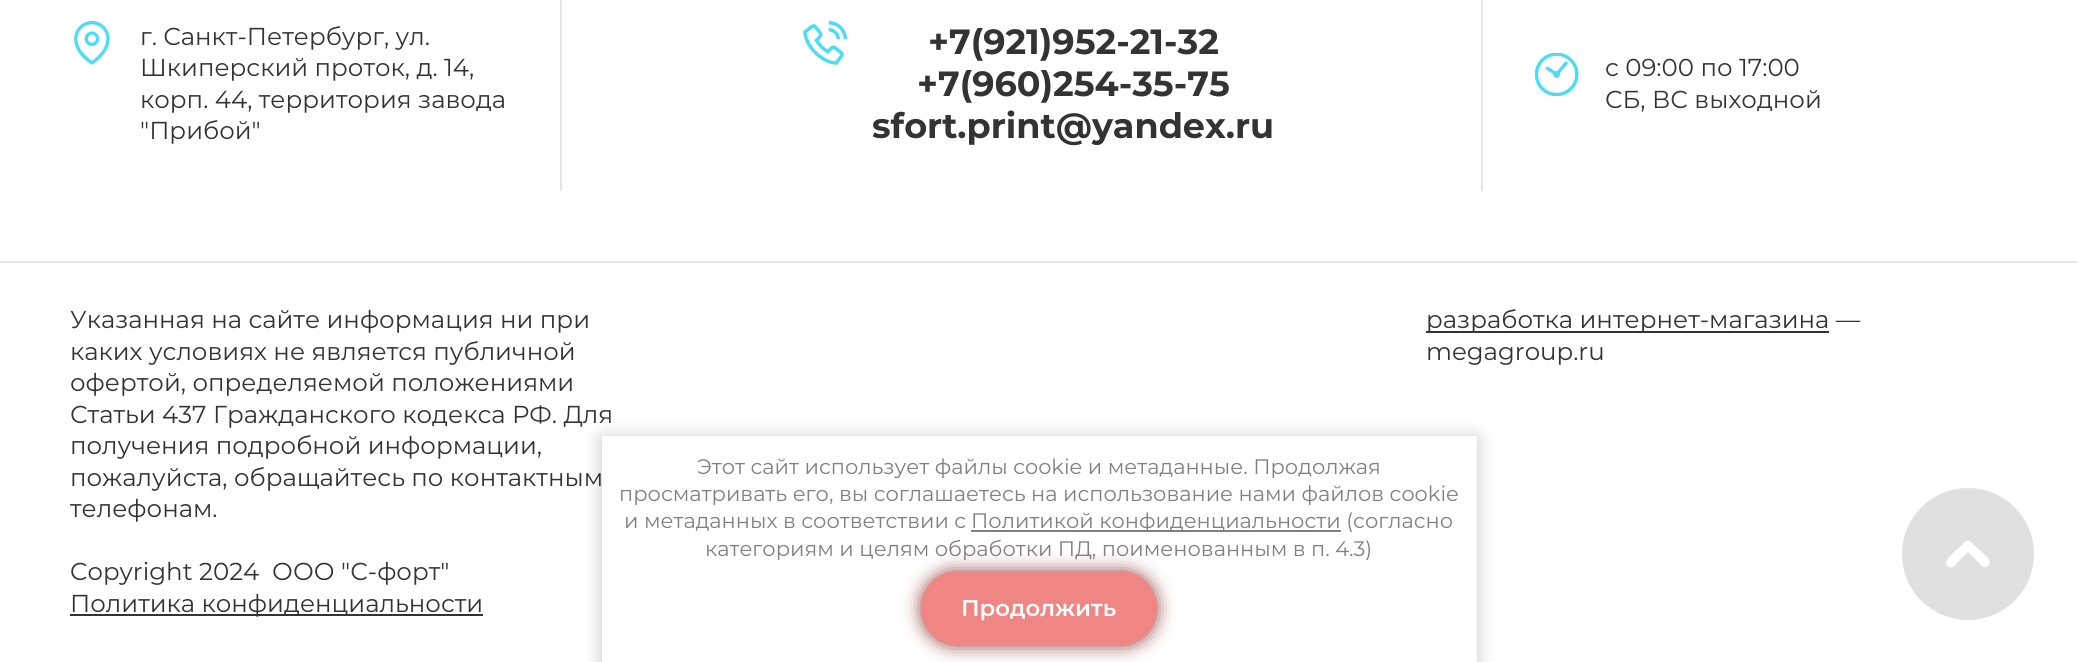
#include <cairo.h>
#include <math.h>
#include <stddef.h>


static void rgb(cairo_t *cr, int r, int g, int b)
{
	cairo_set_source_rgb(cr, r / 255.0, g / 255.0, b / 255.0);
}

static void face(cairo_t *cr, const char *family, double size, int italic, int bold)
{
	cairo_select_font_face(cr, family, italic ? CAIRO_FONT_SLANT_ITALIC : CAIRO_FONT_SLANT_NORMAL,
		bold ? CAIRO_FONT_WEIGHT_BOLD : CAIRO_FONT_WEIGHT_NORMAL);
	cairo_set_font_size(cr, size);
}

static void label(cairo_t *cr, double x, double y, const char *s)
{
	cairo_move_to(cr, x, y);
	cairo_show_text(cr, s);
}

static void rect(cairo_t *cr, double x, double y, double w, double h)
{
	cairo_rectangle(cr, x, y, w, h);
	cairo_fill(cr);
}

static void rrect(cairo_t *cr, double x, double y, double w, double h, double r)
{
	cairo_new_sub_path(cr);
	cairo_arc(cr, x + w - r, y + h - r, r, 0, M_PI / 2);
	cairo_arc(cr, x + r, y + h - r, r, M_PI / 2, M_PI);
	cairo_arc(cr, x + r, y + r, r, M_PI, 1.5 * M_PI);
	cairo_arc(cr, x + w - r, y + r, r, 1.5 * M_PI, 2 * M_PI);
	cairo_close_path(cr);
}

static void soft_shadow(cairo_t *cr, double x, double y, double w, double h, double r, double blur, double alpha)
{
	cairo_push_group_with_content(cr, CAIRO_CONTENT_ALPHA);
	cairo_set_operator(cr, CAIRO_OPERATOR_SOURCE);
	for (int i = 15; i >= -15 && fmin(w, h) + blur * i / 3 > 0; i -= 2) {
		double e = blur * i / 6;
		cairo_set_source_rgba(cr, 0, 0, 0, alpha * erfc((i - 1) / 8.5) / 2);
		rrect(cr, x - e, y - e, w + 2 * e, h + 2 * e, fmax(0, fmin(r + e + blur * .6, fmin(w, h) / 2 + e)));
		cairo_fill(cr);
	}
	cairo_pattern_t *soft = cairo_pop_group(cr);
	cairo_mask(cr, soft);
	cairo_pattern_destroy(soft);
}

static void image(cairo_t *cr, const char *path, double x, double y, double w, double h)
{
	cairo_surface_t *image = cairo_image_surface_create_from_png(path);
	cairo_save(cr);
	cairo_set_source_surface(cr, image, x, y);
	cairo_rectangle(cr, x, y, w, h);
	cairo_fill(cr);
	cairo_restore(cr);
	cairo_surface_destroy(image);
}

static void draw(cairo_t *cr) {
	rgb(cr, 255, 255, 255);
	cairo_paint(cr);
	image(cr, "image0.png", 74, 21, 36, 44);
	face(cr, "Montserrat", 24.5, 0, 0);
	rgb(cr, 51, 51, 51);
	label(cr, 140, 45, "г. Санкт-Петербург, ул.");
	label(cr, 140, 76, "Шкиперский проток, д. 14,");
	label(cr, 140, 108, "корп. 44, территория завода");
	label(cr, 140, 139, "\"Прибой\"");
	rgb(cr, 230, 230, 230);
	rect(cr, 1481, 0, 2, 191);
	rect(cr, 560, 0, 2, 191);
	image(cr, "image1.png", 803, 21, 44, 44);
	face(cr, "Montserrat", 35, 0, 1);
	rgb(cr, 51, 51, 51);
	label(cr, 928, 54, "+7(921)952-21-32");
	label(cr, 917, 96, "+7(960)254-35-75");
	label(cr, 872, 138, "sfort.print@yandex.ru");
	image(cr, "image2.png", 1535, 53, 44, 43);
	face(cr, "Montserrat", 24.5, 0, 0);
	label(cr, 1605, 76, "с 09:00 по 17:00");
	label(cr, 1605, 108, "СБ, ВС выходной");
	rgb(cr, 230, 230, 230);
	rect(cr, 0, 261, 2077, 2);
	rgb(cr, 51, 51, 51);
	label(cr, 70, 328, "Указанная на сайте информация ни при");
	label(cr, 70, 360, "каких условиях не является публичной");
	label(cr, 70, 391, "офертой, определяемой положениями");
	label(cr, 70, 423, "Статьи 437 Гражданского кодекса РФ. Для");
	label(cr, 70, 454, "получения подробной информации,");
	label(cr, 70, 486, "пожалуйста, обращайтесь по контактным");
	label(cr, 70, 517, "телефонам.");
	label(cr, 70, 580, "Copyright 2024  ООО \"С-форт\"");
	cairo_save(cr);
	cairo_set_fill_rule(cr, CAIRO_FILL_RULE_EVEN_ODD);
	cairo_new_path(cr);
	cairo_move_to(cr, 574, 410);
	cairo_line_to(cr, 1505, 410);
	cairo_line_to(cr, 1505, 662);
	cairo_line_to(cr, 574, 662);
	cairo_close_path(cr);
	cairo_move_to(cr, 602, 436);
	cairo_line_to(cr, 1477, 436);
	cairo_line_to(cr, 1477, 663);
	cairo_line_to(cr, 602, 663);
	cairo_close_path(cr);
	cairo_clip(cr);
	rgb(cr, 0, 0, 0);
	soft_shadow(cr, 602, 438, 875, 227, 0, 9, 0.23);
	cairo_restore(cr);
	face(cr, "Montserrat", 21, 0, 0);
	rgb(cr, 128, 128, 128);
	label(cr, 697, 474, "Этот сайт использует файлы cookie и метаданные. Продолжая");
	label(cr, 619, 501, "просматривать его, вы соглашаетесь на использование нами файлов cookie");
	label(cr, 624, 528, "и метаданных в соответствии с");
	rect(cr, 971, 530, 370, 2);
	label(cr, 971, 528, "Политикой конфиденциальности (согласно");
	label(cr, 705, 556, "категориям и целям обработки ПД, поименованным в п. 4.3)");
	rgb(cr, 152, 75, 73);
	soft_shadow(cr, 921, 571, 236, 75, 37.5, 9, 1);
	rgb(cr, 240, 134, 131);
	rrect(cr, 921, 571, 236, 75, 37.5);
	cairo_fill(cr);
	face(cr, "Montserrat SemiBold", 22.75, 0, 0);
	rgb(cr, 255, 255, 255);
	label(cr, 961, 616, "Продолжить");
	rgb(cr, 51, 51, 51);
	rect(cr, 70, 614, 413, 2);
	face(cr, "Montserrat", 24.5, 0, 0);
	label(cr, 70, 612, "Политика конфиденциальности");
	rect(cr, 1426, 331, 403, 2);
	label(cr, 1426, 328, "разработка интернет-магазина —");
	label(cr, 1426, 360, "megagroup.ru");
	rgb(cr, 224, 224, 224);
	cairo_new_path(cr);
	cairo_arc(cr, 1968, 554, 66, 0, 2 * M_PI);
	cairo_fill(cr);
	rgb(cr, 255, 255, 255);
	cairo_new_path(cr);
	cairo_move_to(cr, 1971, 542);
	cairo_curve_to(cr, 1967, 539, 1964, 542, 1962, 545);
	cairo_line_to(cr, 1956, 550);
	cairo_curve_to(cr, 1954, 553, 1940, 563, 1949, 567);
	cairo_curve_to(cr, 1953, 569, 1956, 564, 1959, 561);
	cairo_line_to(cr, 1968, 552);
	cairo_line_to(cr, 1977, 561);
	cairo_curve_to(cr, 1980, 564, 1984, 570, 1988, 566);
	cairo_curve_to(cr, 1992, 562, 1988, 558, 1986, 556);
	cairo_close_path(cr);
	cairo_fill(cr);
}

int main(void) {
	cairo_surface_t *surface = cairo_image_surface_create(CAIRO_FORMAT_RGB24, 2077, 662);
	cairo_t *cr = cairo_create(surface);
	cairo_font_options_t *options = cairo_font_options_create();
	cairo_font_options_set_hint_metrics(options, CAIRO_HINT_METRICS_OFF);
	cairo_font_options_set_hint_style(options, CAIRO_HINT_STYLE_NONE);
	cairo_set_font_options(cr, options);
	cairo_set_miter_limit(cr, 4);
	draw(cr);
	cairo_surface_write_to_png(surface, "render.png");
	cairo_font_options_destroy(options);
	cairo_destroy(cr);
	cairo_surface_destroy(surface);
	return 0;
}
